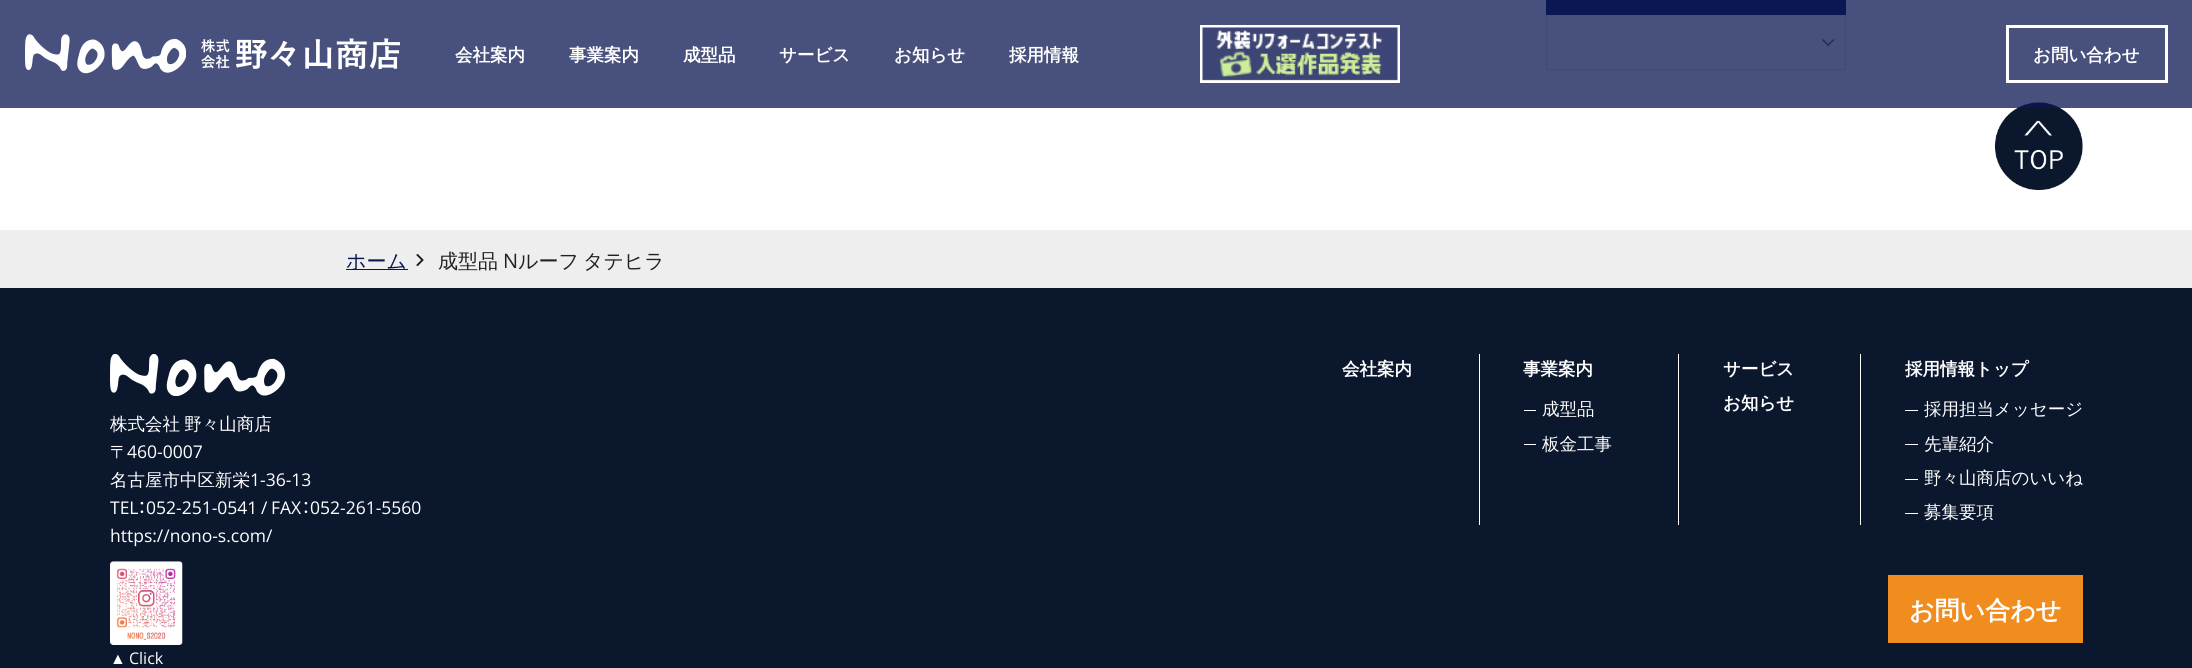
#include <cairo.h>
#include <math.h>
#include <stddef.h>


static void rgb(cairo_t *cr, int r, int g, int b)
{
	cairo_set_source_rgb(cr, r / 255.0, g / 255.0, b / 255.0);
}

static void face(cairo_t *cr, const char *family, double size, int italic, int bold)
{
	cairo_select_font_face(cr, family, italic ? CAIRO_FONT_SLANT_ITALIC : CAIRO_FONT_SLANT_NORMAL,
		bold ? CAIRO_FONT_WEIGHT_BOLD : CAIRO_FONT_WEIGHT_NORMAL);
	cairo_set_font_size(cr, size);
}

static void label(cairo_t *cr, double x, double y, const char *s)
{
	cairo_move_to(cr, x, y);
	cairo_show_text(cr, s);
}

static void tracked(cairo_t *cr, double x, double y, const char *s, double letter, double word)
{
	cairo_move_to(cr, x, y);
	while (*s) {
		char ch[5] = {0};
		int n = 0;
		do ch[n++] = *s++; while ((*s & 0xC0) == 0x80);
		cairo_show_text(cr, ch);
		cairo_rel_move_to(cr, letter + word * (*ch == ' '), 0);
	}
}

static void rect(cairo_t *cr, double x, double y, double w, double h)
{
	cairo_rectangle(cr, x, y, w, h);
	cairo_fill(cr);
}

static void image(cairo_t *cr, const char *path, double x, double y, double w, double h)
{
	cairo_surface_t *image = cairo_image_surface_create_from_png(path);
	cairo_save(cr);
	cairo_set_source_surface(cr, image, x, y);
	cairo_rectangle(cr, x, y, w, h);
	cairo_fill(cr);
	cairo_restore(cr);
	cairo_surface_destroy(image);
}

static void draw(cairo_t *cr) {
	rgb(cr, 255, 255, 255);
	cairo_paint(cr);
	rgb(cr, 11, 23, 82);
	rect(cr, 1546, 0, 300, 15);
	rgb(cr, 226, 226, 226);
	rect(cr, 1845, 15, 1, 55);
	rect(cr, 1546, 69, 300, 1);
	rect(cr, 1546, 15, 1, 55);
	rgb(cr, 102, 102, 102);
	cairo_new_path(cr);
	cairo_move_to(cr, 1833.5, 39);
	cairo_line_to(cr, 1834.5, 40);
	cairo_line_to(cr, 1828, 46);
	cairo_line_to(cr, 1827, 45);
	cairo_close_path(cr);
	cairo_fill(cr);
	cairo_new_path(cr);
	cairo_move_to(cr, 1823, 39);
	cairo_line_to(cr, 1829, 45);
	cairo_line_to(cr, 1828, 46);
	cairo_line_to(cr, 1822, 40);
	cairo_close_path(cr);
	cairo_fill(cr);
	image(cr, "image3.png", 1995, 102, 88, 88);
	cairo_set_source_rgba(cr, 0.043, 0.09, 0.322, 0.75);
	rect(cr, 0, 0, 2192, 108);
	image(cr, "image0.png", 25, 34, 161, 40);
	image(cr, "image1.png", 201, 38, 199, 32);
	image(cr, "image2.png", 1200, 25, 200, 58);
	face(cr, "WenQuanYi Zen Hei", 17.5, 0, 1);
	rgb(cr, 255, 255, 255);
	label(cr, 455, 61, "会社案内");
	label(cr, 569, 61, "事業案内");
	label(cr, 683, 61, "成型品");
	label(cr, 779, 61, "サービス");
	label(cr, 894, 61, "お知らせ");
	label(cr, 1009, 61, "採用情報");
	cairo_rectangle(cr, 2007.5, 26.5, 159, 55);
	cairo_set_line_width(cr, 3);
	cairo_stroke(cr);
	label(cr, 2033, 61, "お問い合わせ");
	rgb(cr, 238, 238, 238);
	rect(cr, 0, 230, 2192, 58);
	rgb(cr, 11, 23, 82);
	rect(cr, 346, 269, 62, 1);
	face(cr, "WenQuanYi Zen Hei Medium", 20, 0, 0);
	label(cr, 346, 268, "ホーム");
	image(cr, "image4.png", 416, 253, 8, 14);
	rgb(cr, 33, 33, 33);
	label(cr, 438, 268, "成型品");
	face(cr, "Open Sans", 20, 0, 0);
	label(cr, 503, 268, "N");
	face(cr, "WenQuanYi Zen Hei Medium", 20, 0, 0);
	tracked(cr, 518, 268, "ルーフ タテヒラ", 0, -2);
	rgb(cr, 11, 23, 45);
	rect(cr, 0, 288, 2192, 380);
	image(cr, "image5.png", 110, 354, 175, 42);
	face(cr, "WenQuanYi Zen Hei Medium", 17.5, 0, 0);
	rgb(cr, 255, 255, 255);
	tracked(cr, 110, 430, "株式会社 野々山商店", 0, -1);
	label(cr, 110, 458, "〒");
	face(cr, "Open Sans", 17.5, 0, 0);
	label(cr, 127, 458, "460-0007");
	face(cr, "WenQuanYi Zen Hei Medium", 17.5, 0, 0);
	label(cr, 110, 486, "名古屋市中区新栄");
	face(cr, "Open Sans", 17.5, 0, 0);
	label(cr, 250, 486, "1-36-13");
	label(cr, 110, 514, "TEL");
	face(cr, "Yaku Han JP", 17.5, 0, 0);
	label(cr, 138, 514, "：");
	face(cr, "Open Sans", 17.5, 0, 0);
	label(cr, 146, 514, "052-251-0541");
	tracked(cr, 261, 514, "/ FAX", 0, -1);
	face(cr, "Yaku Han JP", 17.5, 0, 0);
	label(cr, 302, 514, "：");
	face(cr, "Open Sans", 17.5, 0, 0);
	label(cr, 310, 514, "052-261-5560");
	label(cr, 110, 542, "https://nono-s.com/");
	image(cr, "image6.png", 110, 561, 73, 84);
	face(cr, "Liberation Sans", 16, 0, 0);
	label(cr, 110, 664, "▲");
	face(cr, "Open Sans", 16, 0, 0);
	label(cr, 129, 664, "Click");
	rect(cr, 1479, 354, 1, 171);
	face(cr, "WenQuanYi Zen Hei", 17.5, 0, 1);
	label(cr, 1342, 375, "会社案内");
	rect(cr, 1678, 354, 1, 171);
	label(cr, 1523, 375, "事業案内");
	rect(cr, 1524, 410, 12, 1);
	face(cr, "WenQuanYi Zen Hei Medium", 17.5, 0, 0);
	label(cr, 1542, 415, "成型品");
	rect(cr, 1524, 444, 12, 1);
	label(cr, 1542, 450, "板金工事");
	rect(cr, 1860, 354, 1, 171);
	face(cr, "WenQuanYi Zen Hei", 17.5, 0, 1);
	label(cr, 1723, 375, "サービス");
	label(cr, 1723, 409, "お知らせ");
	label(cr, 1905, 375, "採用情報トップ");
	rect(cr, 1905, 410, 13, 1);
	face(cr, "WenQuanYi Zen Hei Medium", 17.5, 0, 0);
	label(cr, 1924, 415, "採用担当メッセージ");
	rect(cr, 1905, 444, 13, 1);
	label(cr, 1924, 450, "先輩紹介");
	rect(cr, 1905, 479, 13, 1);
	label(cr, 1924, 484, "野々山商店のいいね");
	rect(cr, 1905, 513, 13, 1);
	label(cr, 1924, 518, "募集要項");
	rgb(cr, 241, 141, 30);
	rect(cr, 1888, 575, 195, 68);
	face(cr, "WenQuanYi Zen Hei", 25, 0, 1);
	rgb(cr, 255, 255, 255);
	label(cr, 1909, 619, "お問い合わせ");
}

int main(void) {
	cairo_surface_t *surface = cairo_image_surface_create(CAIRO_FORMAT_RGB24, 2192, 668);
	cairo_t *cr = cairo_create(surface);
	cairo_font_options_t *options = cairo_font_options_create();
	cairo_font_options_set_hint_metrics(options, CAIRO_HINT_METRICS_OFF);
	cairo_font_options_set_hint_style(options, CAIRO_HINT_STYLE_NONE);
	cairo_set_font_options(cr, options);
	cairo_set_miter_limit(cr, 4);
	draw(cr);
	cairo_surface_write_to_png(surface, "render.png");
	cairo_font_options_destroy(options);
	cairo_destroy(cr);
	cairo_surface_destroy(surface);
	return 0;
}
